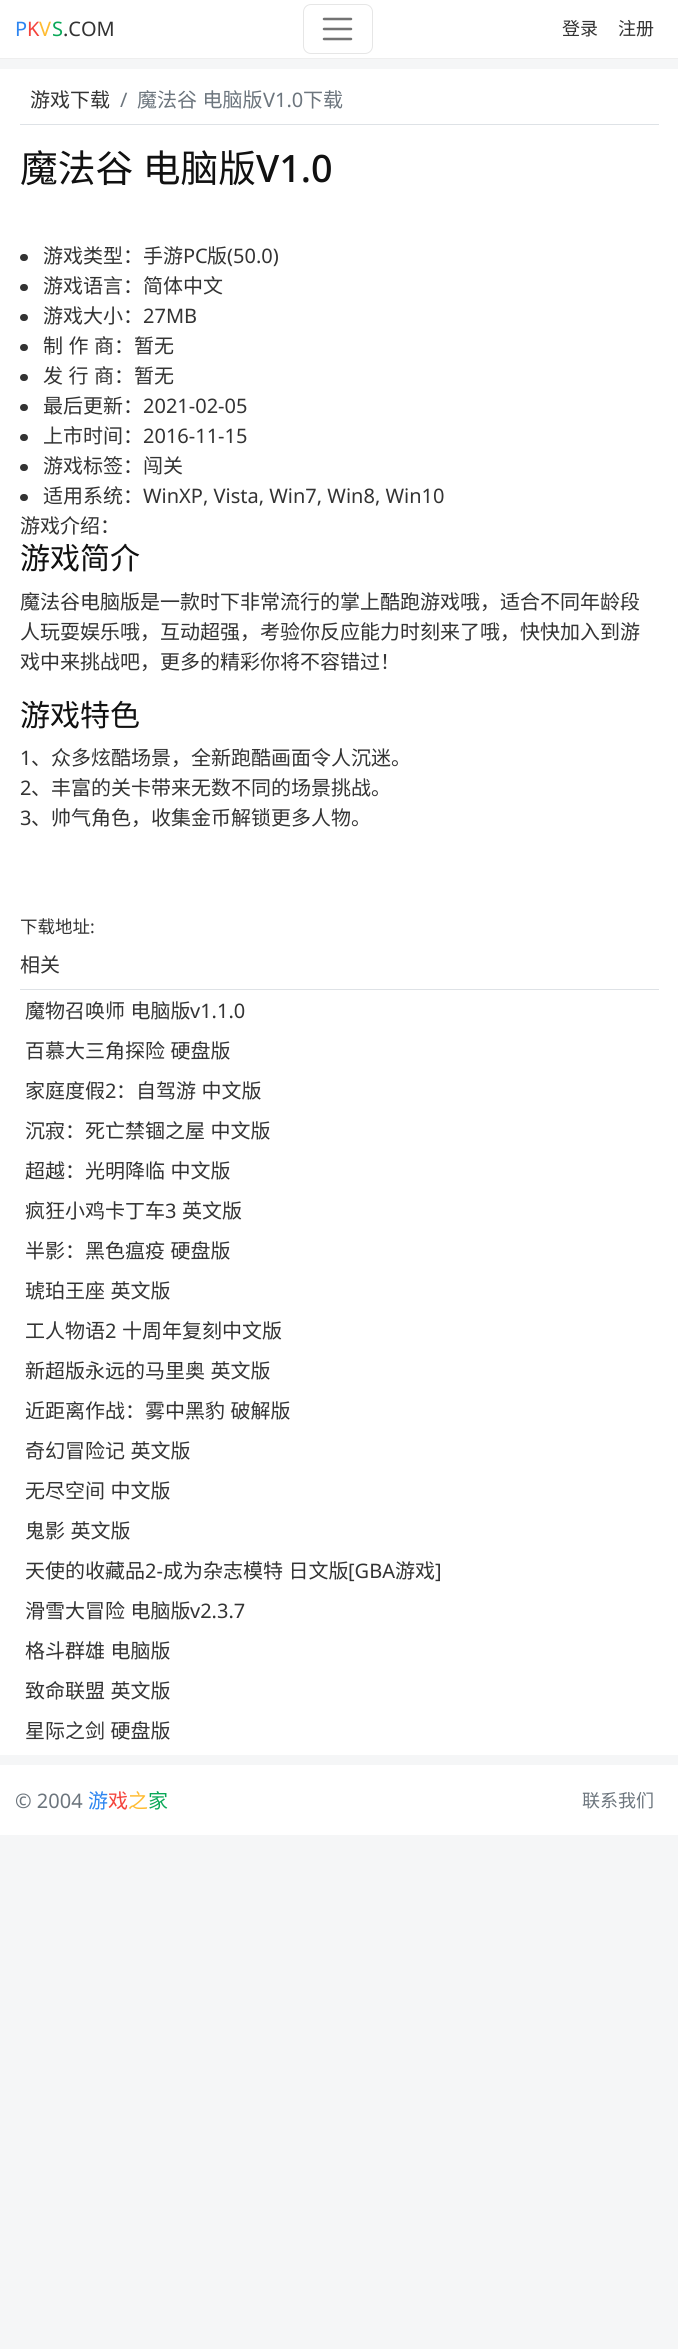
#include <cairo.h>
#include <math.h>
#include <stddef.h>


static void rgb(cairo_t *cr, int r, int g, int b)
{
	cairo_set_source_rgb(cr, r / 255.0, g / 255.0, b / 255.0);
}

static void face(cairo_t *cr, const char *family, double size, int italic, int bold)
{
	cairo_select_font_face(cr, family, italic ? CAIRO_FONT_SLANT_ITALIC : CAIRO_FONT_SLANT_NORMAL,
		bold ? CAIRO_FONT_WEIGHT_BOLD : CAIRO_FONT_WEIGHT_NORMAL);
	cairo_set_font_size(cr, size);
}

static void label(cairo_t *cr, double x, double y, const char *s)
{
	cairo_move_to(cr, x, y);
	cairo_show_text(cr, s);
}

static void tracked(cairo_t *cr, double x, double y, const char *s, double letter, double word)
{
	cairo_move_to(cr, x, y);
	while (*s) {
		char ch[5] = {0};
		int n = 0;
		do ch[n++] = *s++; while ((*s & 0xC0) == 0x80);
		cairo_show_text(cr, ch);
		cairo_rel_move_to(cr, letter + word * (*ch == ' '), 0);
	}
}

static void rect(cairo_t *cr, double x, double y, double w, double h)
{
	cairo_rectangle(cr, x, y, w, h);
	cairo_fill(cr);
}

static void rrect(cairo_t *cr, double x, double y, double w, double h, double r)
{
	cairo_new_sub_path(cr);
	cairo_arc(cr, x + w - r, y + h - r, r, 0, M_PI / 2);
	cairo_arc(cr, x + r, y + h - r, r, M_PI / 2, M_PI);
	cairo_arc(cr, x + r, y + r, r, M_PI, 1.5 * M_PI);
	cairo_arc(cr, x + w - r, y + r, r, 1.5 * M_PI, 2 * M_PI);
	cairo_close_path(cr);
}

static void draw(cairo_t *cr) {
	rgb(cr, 245, 246, 247);
	cairo_paint(cr);
	rgb(cr, 255, 255, 255);
	rect(cr, 0, 0, 678, 58);
	rgb(cr, 238, 238, 238);
	rect(cr, 0, 58, 678, 1);
	face(cr, "Noto Sans", 20, 0, 0);
	rgb(cr, 45, 133, 240);
	label(cr, 15, 36, "P");
	rgb(cr, 244, 67, 60);
	label(cr, 27, 36, "K");
	rgb(cr, 255, 188, 50);
	label(cr, 39, 36, "V");
	rgb(cr, 10, 168, 88);
	label(cr, 52, 36, "S");
	rgb(cr, 51, 51, 51);
	label(cr, 63, 36, ".COM");
	rrect(cr, 303.5, 4.5, 69, 49, 7.5);
	rgb(cr, 230, 230, 230);
	cairo_set_line_width(cr, 1);
	cairo_stroke(cr);
	cairo_new_path(cr);
	cairo_move_to(cr, 324, 19);
	cairo_line_to(cr, 351, 19);
	cairo_move_to(cr, 324, 29);
	cairo_line_to(cr, 351, 29);
	cairo_move_to(cr, 324, 39);
	cairo_line_to(cr, 351, 39);
	rgb(cr, 115, 115, 115);
	cairo_set_line_width(cr, 2.5);
	cairo_set_line_cap(cr, CAIRO_LINE_CAP_ROUND);
	cairo_stroke(cr);
	face(cr, "Noto Sans CJK SC", 18, 0, 0);
	rgb(cr, 51, 51, 51);
	label(cr, 562, 35, "登录");
	label(cr, 618, 35, "注册");
	rgb(cr, 255, 255, 255);
	rect(cr, 0, 69, 678, 1686);
	rgb(cr, 222, 226, 230);
	rect(cr, 20, 124, 639, 1);
	face(cr, "Noto Sans CJK SC", 20, 0, 0);
	rgb(cr, 51, 51, 51);
	label(cr, 30, 107, "游戏下载");
	face(cr, "Noto Sans", 20, 0, 0);
	rgb(cr, 108, 117, 125);
	label(cr, 120, 107, "/");
	face(cr, "Noto Sans CJK SC", 20, 0, 0);
	tracked(cr, 137, 107, "魔法谷 电脑版", 0, 1);
	face(cr, "Noto Sans", 20, 0, 0);
	label(cr, 263, 107, "V1.0");
	face(cr, "Noto Sans CJK SC", 20, 0, 0);
	label(cr, 303, 107, "下载");
	face(cr, "Noto Sans CJK SC", 37.75, 0, 0);
	rgb(cr, 17, 17, 17);
	tracked(cr, 20, 182, "魔法谷 电脑版", 0, 1);
	face(cr, "Noto Sans Medium", 37.75, 0, 0);
	label(cr, 256, 182, "V1.0");
	rgb(cr, 51, 51, 51);
	rrect(cr, 20, 254, 8, 7, 3.5);
	cairo_fill(cr);
	face(cr, "Noto Sans CJK SC", 20, 0, 0);
	label(cr, 43, 263, "游戏类型：手游");
	face(cr, "Noto Sans", 20, 0, 0);
	label(cr, 183, 263, "PC");
	face(cr, "Noto Sans CJK SC", 20, 0, 0);
	label(cr, 207, 263, "版");
	face(cr, "Noto Sans", 20, 0, 0);
	label(cr, 227, 263, "(50.0)");
	rrect(cr, 20, 284, 8, 7, 3.5);
	cairo_fill(cr);
	face(cr, "Noto Sans CJK SC", 20, 0, 0);
	label(cr, 43, 293, "游戏语言：简体中文");
	rrect(cr, 20, 314, 8, 7, 3.5);
	cairo_fill(cr);
	label(cr, 43, 323, "游戏大小：");
	face(cr, "Noto Sans", 20, 0, 0);
	label(cr, 143, 323, "27MB");
	rrect(cr, 20, 344, 8, 7, 3.5);
	cairo_fill(cr);
	face(cr, "Noto Sans CJK SC", 20, 0, 0);
	tracked(cr, 43, 353, "制 作 商：暂无", 0, 1);
	rrect(cr, 20, 374, 8, 7, 3.5);
	cairo_fill(cr);
	tracked(cr, 43, 383, "发 行 商：暂无", 0, 1);
	rrect(cr, 20, 404, 8, 7, 3.5);
	cairo_fill(cr);
	label(cr, 43, 413, "最后更新：");
	face(cr, "Noto Sans", 20, 0, 0);
	label(cr, 143, 413, "2021-02-05");
	rrect(cr, 20, 434, 8, 7, 3.5);
	cairo_fill(cr);
	face(cr, "Noto Sans CJK SC", 20, 0, 0);
	label(cr, 43, 443, "上市时间：");
	face(cr, "Noto Sans", 20, 0, 0);
	label(cr, 143, 443, "2016-11-15");
	rrect(cr, 20, 464, 8, 7, 3.5);
	cairo_fill(cr);
	face(cr, "Noto Sans CJK SC", 20, 0, 0);
	label(cr, 43, 473, "游戏标签：闯关");
	rrect(cr, 20, 494, 8, 7, 3.5);
	cairo_fill(cr);
	label(cr, 43, 503, "适用系统：");
	face(cr, "Noto Sans", 20, 0, 0);
	label(cr, 143, 503, "WinXP, Vista, Win7, Win8, Win10");
	face(cr, "Noto Sans CJK SC", 20, 0, 0);
	label(cr, 20, 533, "游戏介绍：");
	face(cr, "Noto Sans CJK SC", 30, 0, 0);
	rgb(cr, 17, 17, 17);
	label(cr, 20, 569, "游戏简介");
	face(cr, "Noto Sans CJK SC", 20, 0, 0);
	rgb(cr, 51, 51, 51);
	label(cr, 20, 609, "魔法谷电脑版是一款时下非常流行的掌上酷跑游戏哦，适合不同年龄段");
	label(cr, 20, 639, "人玩耍娱乐哦，互动超强，考验你反应能力时刻来了哦，快快加入到游");
	label(cr, 20, 669, "戏中来挑战吧，更多的精彩你将不容错过！");
	face(cr, "Noto Sans CJK SC", 30, 0, 0);
	rgb(cr, 17, 17, 17);
	label(cr, 20, 726, "游戏特色");
	face(cr, "Noto Sans", 20, 0, 0);
	rgb(cr, 51, 51, 51);
	label(cr, 20, 765, "1");
	face(cr, "Noto Sans CJK SC", 20, 0, 0);
	label(cr, 31, 765, "、众多炫酷场景，全新跑酷画面令人沉迷。");
	face(cr, "Noto Sans", 20, 0, 0);
	label(cr, 20, 795, "2");
	face(cr, "Noto Sans CJK SC", 20, 0, 0);
	label(cr, 31, 795, "、丰富的关卡带来无数不同的场景挑战。");
	face(cr, "Noto Sans", 20, 0, 0);
	label(cr, 20, 825, "3");
	face(cr, "Noto Sans CJK SC", 20, 0, 0);
	label(cr, 31, 825, "、帅气角色，收集金币解锁更多人物。");
	face(cr, "Noto Sans CJK SC", 17.5, 0, 0);
	label(cr, 20, 933, "下载地址");
	face(cr, "Noto Sans", 17.5, 0, 0);
	label(cr, 90, 933, ":");
	rgb(cr, 222, 226, 230);
	rect(cr, 20, 989, 639, 1);
	face(cr, "Noto Sans CJK SC", 20, 0, 0);
	rgb(cr, 51, 51, 51);
	label(cr, 20, 972, "相关");
	tracked(cr, 25, 1018, "魔物召唤师 电脑版", 0, 1);
	face(cr, "Noto Sans", 20, 0, 0);
	label(cr, 190, 1018, "v1.1.0");
	face(cr, "Noto Sans CJK SC", 20, 0, 0);
	tracked(cr, 25, 1058, "百慕大三角探险 硬盘版", 0, 1);
	label(cr, 25, 1098, "家庭度假");
	face(cr, "Noto Sans", 20, 0, 0);
	label(cr, 105, 1098, "2");
	face(cr, "Noto Sans CJK SC", 20, 0, 0);
	tracked(cr, 116, 1098, "：自驾游 中文版", 0, 1);
	tracked(cr, 25, 1138, "沉寂：死亡禁锢之屋 中文版", 0, 1);
	tracked(cr, 25, 1178, "超越：光明降临 中文版", 0, 1);
	label(cr, 25, 1218, "疯狂小鸡卡丁车");
	face(cr, "Noto Sans", 20, 0, 0);
	label(cr, 165, 1218, "3");
	face(cr, "Noto Sans CJK SC", 20, 0, 0);
	label(cr, 182, 1218, "英文版");
	tracked(cr, 25, 1258, "半影：黑色瘟疫 硬盘版", 0, 1);
	tracked(cr, 25, 1298, "琥珀王座 英文版", 0, 1);
	label(cr, 25, 1338, "工人物语");
	face(cr, "Noto Sans", 20, 0, 0);
	label(cr, 105, 1338, "2");
	face(cr, "Noto Sans CJK SC", 20, 0, 0);
	label(cr, 122, 1338, "十周年复刻中文版");
	tracked(cr, 25, 1378, "新超版永远的马里奥 英文版", 0, 1);
	tracked(cr, 25, 1418, "近距离作战：雾中黑豹 破解版", 0, 1);
	tracked(cr, 25, 1458, "奇幻冒险记 英文版", 0, 1);
	tracked(cr, 25, 1498, "无尽空间 中文版", 0, 1);
	tracked(cr, 25, 1538, "鬼影 英文版", 0, 1);
	label(cr, 25, 1578, "天使的收藏品");
	face(cr, "Noto Sans", 20, 0, 0);
	label(cr, 145, 1578, "2-");
	face(cr, "Noto Sans CJK SC", 20, 0, 0);
	tracked(cr, 163, 1578, "成为杂志模特 日文版", 0, 1);
	face(cr, "Noto Sans", 20, 0, 0);
	label(cr, 348, 1578, "[GBA");
	face(cr, "Noto Sans CJK SC", 20, 0, 0);
	label(cr, 395, 1578, "游戏");
	face(cr, "Noto Sans", 20, 0, 0);
	label(cr, 435, 1578, "]");
	face(cr, "Noto Sans CJK SC", 20, 0, 0);
	tracked(cr, 25, 1618, "滑雪大冒险 电脑版", 0, 1);
	face(cr, "Noto Sans", 20, 0, 0);
	label(cr, 190, 1618, "v2.3.7");
	face(cr, "Noto Sans CJK SC", 20, 0, 0);
	tracked(cr, 25, 1658, "格斗群雄 电脑版", 0, 1);
	tracked(cr, 25, 1698, "致命联盟 英文版", 0, 1);
	tracked(cr, 25, 1738, "星际之剑 硬盘版", 0, 1);
	rgb(cr, 255, 255, 255);
	rect(cr, 0, 1765, 678, 70);
	face(cr, "Noto Sans", 20, 0, 0);
	rgb(cr, 108, 117, 125);
	label(cr, 15, 1808, "© 2004");
	face(cr, "Noto Sans CJK SC", 20, 0, 0);
	rgb(cr, 45, 133, 240);
	label(cr, 88, 1808, "游");
	rgb(cr, 244, 67, 60);
	label(cr, 108, 1808, "戏");
	rgb(cr, 255, 188, 50);
	label(cr, 128, 1808, "之");
	rgb(cr, 10, 168, 88);
	label(cr, 148, 1808, "家");
	face(cr, "Noto Sans CJK SC", 18, 0, 0);
	rgb(cr, 108, 117, 125);
	label(cr, 582, 1807, "联系我们");
}

int main(void) {
	cairo_surface_t *surface = cairo_image_surface_create(CAIRO_FORMAT_RGB24, 678, 2349);
	cairo_t *cr = cairo_create(surface);
	cairo_font_options_t *options = cairo_font_options_create();
	cairo_font_options_set_hint_metrics(options, CAIRO_HINT_METRICS_OFF);
	cairo_font_options_set_hint_style(options, CAIRO_HINT_STYLE_NONE);
	cairo_set_font_options(cr, options);
	cairo_set_miter_limit(cr, 4);
	draw(cr);
	cairo_surface_write_to_png(surface, "render.png");
	cairo_font_options_destroy(options);
	cairo_destroy(cr);
	cairo_surface_destroy(surface);
	return 0;
}
